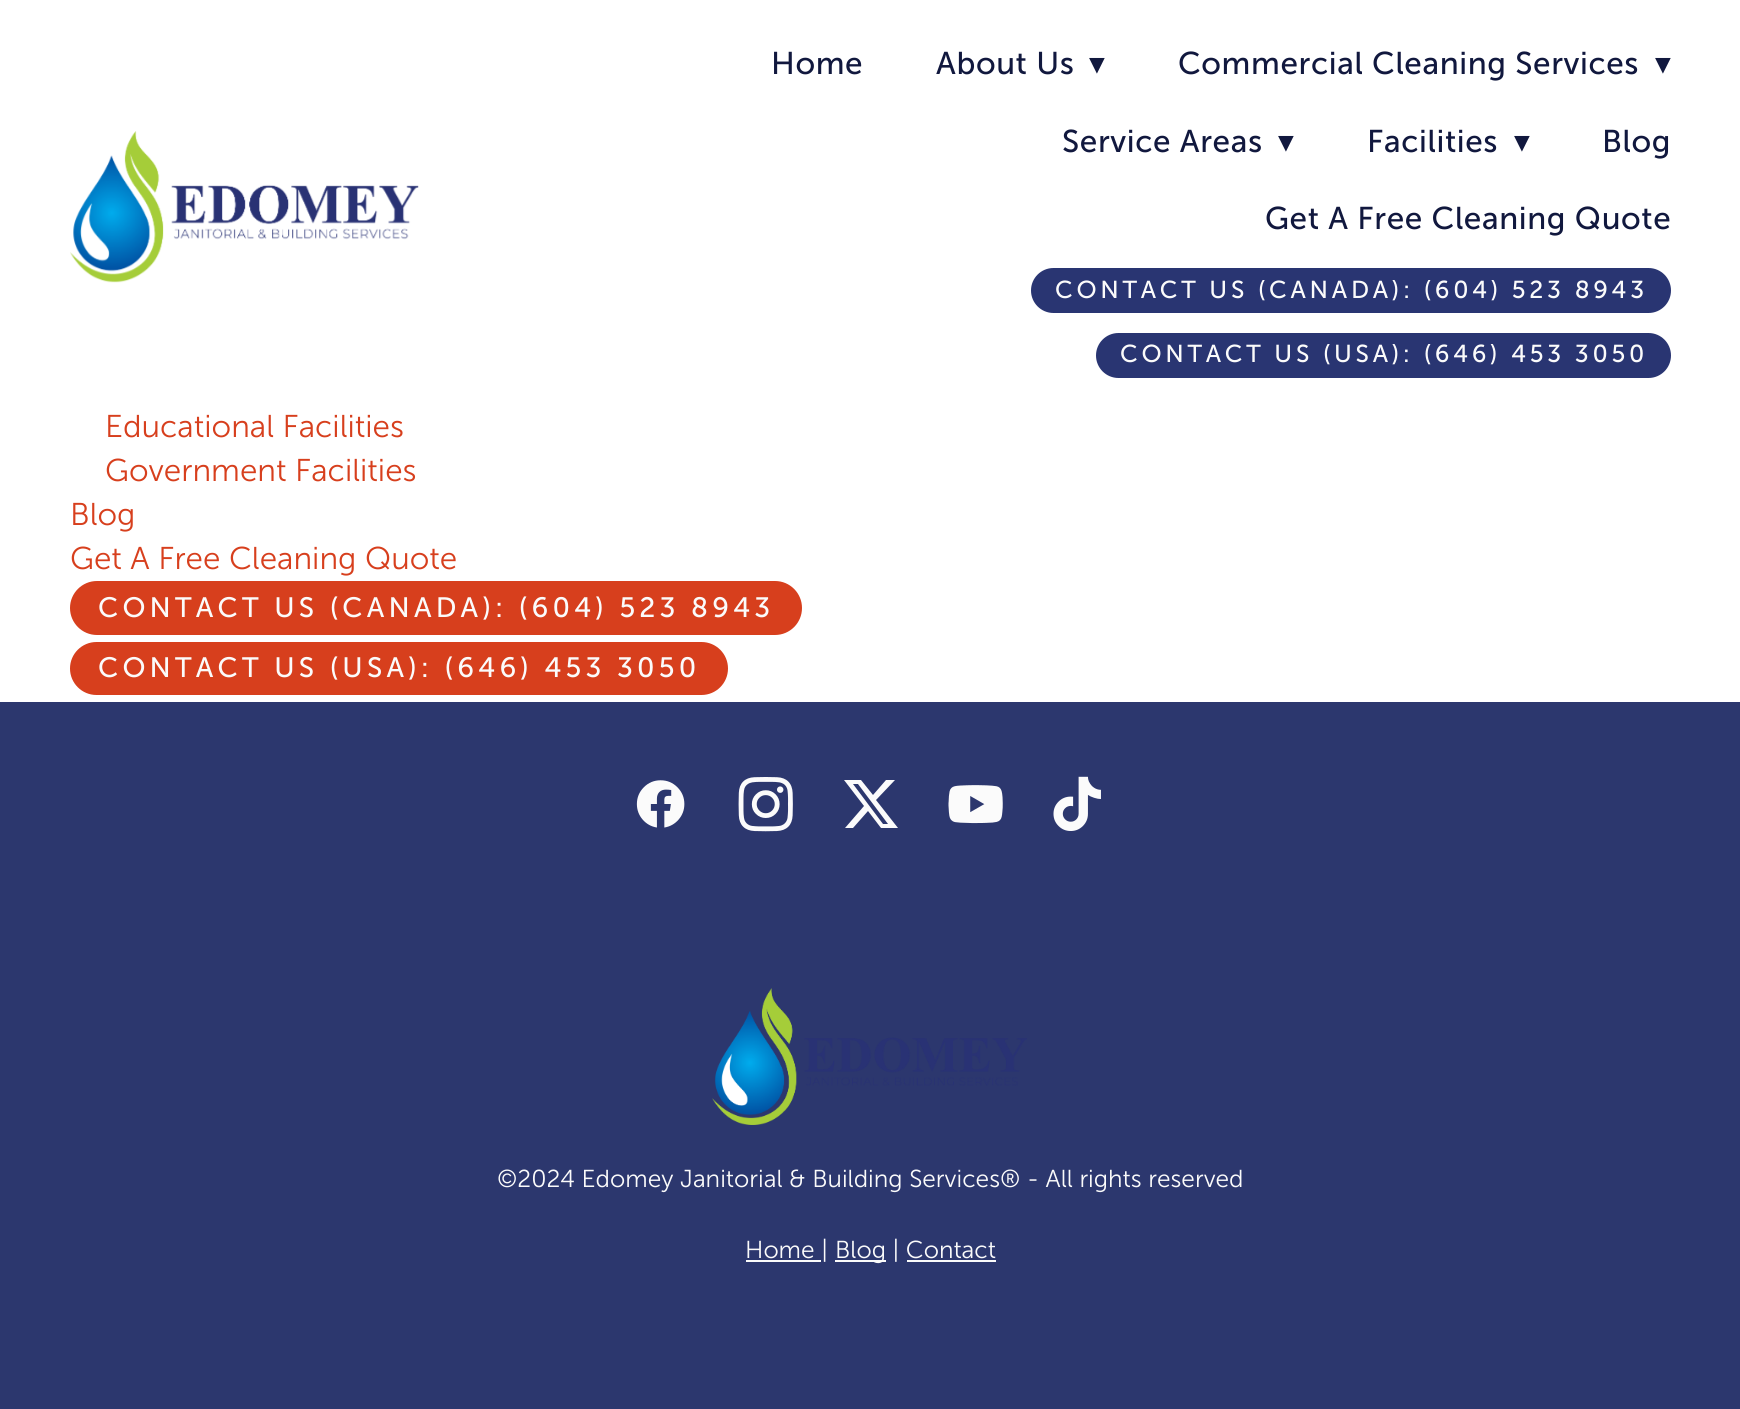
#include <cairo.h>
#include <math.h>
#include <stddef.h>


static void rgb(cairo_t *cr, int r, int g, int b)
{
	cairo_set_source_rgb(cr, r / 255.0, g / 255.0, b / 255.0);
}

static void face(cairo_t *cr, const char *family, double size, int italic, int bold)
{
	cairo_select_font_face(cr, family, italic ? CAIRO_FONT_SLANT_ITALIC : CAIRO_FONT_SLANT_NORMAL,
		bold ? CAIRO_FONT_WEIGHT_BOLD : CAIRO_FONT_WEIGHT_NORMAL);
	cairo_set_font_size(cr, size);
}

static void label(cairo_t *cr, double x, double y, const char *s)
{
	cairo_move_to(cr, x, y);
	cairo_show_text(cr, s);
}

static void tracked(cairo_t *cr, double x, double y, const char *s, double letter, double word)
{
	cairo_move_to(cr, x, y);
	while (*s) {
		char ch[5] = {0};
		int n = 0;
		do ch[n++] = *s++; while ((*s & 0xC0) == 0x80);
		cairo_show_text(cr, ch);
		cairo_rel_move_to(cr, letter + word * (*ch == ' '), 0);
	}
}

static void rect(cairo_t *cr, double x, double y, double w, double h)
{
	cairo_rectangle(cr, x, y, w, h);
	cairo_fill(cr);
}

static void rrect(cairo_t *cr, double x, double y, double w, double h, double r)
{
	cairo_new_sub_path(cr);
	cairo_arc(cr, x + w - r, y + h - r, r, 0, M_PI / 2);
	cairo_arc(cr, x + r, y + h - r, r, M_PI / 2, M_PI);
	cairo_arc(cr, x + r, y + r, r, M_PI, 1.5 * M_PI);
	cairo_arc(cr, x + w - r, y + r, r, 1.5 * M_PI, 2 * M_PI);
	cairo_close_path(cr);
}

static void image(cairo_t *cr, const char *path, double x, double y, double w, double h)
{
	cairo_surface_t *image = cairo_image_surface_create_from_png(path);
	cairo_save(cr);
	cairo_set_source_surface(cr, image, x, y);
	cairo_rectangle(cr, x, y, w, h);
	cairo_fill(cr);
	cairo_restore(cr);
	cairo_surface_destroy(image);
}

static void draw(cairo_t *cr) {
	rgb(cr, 255, 255, 255);
	cairo_paint(cr);
	image(cr, "image0.png", 70, 131, 349, 152);
	face(cr, "Museo Sans", 31.5, 0, 0);
	rgb(cr, 17, 24, 62);
	tracked(cr, 771, 74, "Home", 0.6, 0);
	tracked(cr, 936, 74, "About Us", 0.6, 0);
	face(cr, "DejaVu Sans", 31.5, 0, 0);
	tracked(cr, 1089, 74, "▾", 0.6, 0);
	face(cr, "Museo Sans", 31.5, 0, 0);
	tracked(cr, 1178, 74, "Commercial Cleaning Services", 0.6, 0);
	face(cr, "DejaVu Sans", 31.5, 0, 0);
	tracked(cr, 1655, 74, "▾", 0.6, 0);
	face(cr, "Museo Sans", 31.5, 0, 0);
	tracked(cr, 1062, 152, "Service Areas", 0.6, 0);
	face(cr, "DejaVu Sans", 31.5, 0, 0);
	tracked(cr, 1278, 152, "▾", 0.6, 0);
	face(cr, "Museo Sans", 31.5, 0, 0);
	tracked(cr, 1367, 152, "Facilities", 0.6, 0);
	face(cr, "DejaVu Sans", 31.5, 0, 0);
	tracked(cr, 1514, 152, "▾", 0.6, 0);
	face(cr, "Museo Sans", 31.5, 0, 0);
	tracked(cr, 1602, 152, "Blog", 0.6, 0);
	tracked(cr, 1265, 229, "Get A Free Cleaning Quote", 0.6, 0);
	rgb(cr, 41, 53, 114);
	rrect(cr, 1031, 268, 640, 45, 22.5);
	cairo_fill(cr);
	face(cr, "Museo Sans", 24.5, 0, 0);
	rgb(cr, 251, 251, 251);
	tracked(cr, 1055, 298, "CONTACT US (CANADA): (604) 523 8943", 3.7, 0);
	rgb(cr, 41, 53, 114);
	rrect(cr, 1096, 333, 575, 45, 22.5);
	cairo_fill(cr);
	rgb(cr, 251, 251, 251);
	tracked(cr, 1120, 362, "CONTACT US (USA): (646) 453 3050", 3.7, 0);
	face(cr, "Museo Sans Light", 31.5, 0, 0);
	rgb(cr, 215, 63, 29);
	label(cr, 105, 437, "Educational Facilities");
	label(cr, 105, 481, "Government Facilities");
	label(cr, 70, 525, "Blog");
	label(cr, 70, 569, "Get A Free Cleaning Quote");
	rrect(cr, 70, 581, 732, 54, 27);
	cairo_fill(cr);
	face(cr, "Museo Sans", 28, 0, 0);
	rgb(cr, 251, 251, 251);
	tracked(cr, 98, 617, "CONTACT US (CANADA): (604) 523 8943", 4.2, 0);
	rgb(cr, 215, 63, 29);
	rrect(cr, 70, 642, 658, 53, 26.5);
	cairo_fill(cr);
	rgb(cr, 251, 251, 251);
	tracked(cr, 98, 677, "CONTACT US (USA): (646) 453 3050", 4.2, 0);
	rgb(cr, 44, 55, 110);
	rect(cr, 0, 702, 1740, 707);
	image(cr, "image1.png", 636, 780, 49, 48);
	image(cr, "image2.png", 738, 777, 55, 55);
	rgb(cr, 251, 251, 251);
	cairo_new_path(cr);
	cairo_move_to(cr, 886, 780);
	cairo_line_to(cr, 895, 780);
	cairo_line_to(cr, 876, 800);
	cairo_line_to(cr, 898, 828);
	cairo_line_to(cr, 881, 828);
	cairo_line_to(cr, 868, 811);
	cairo_line_to(cr, 853, 828);
	cairo_line_to(cr, 845, 828);
	cairo_line_to(cr, 864, 806);
	cairo_line_to(cr, 844, 780);
	cairo_line_to(cr, 861, 780);
	cairo_line_to(cr, 873, 795);
	cairo_close_path(cr);
	cairo_move_to(cr, 883, 824);
	cairo_line_to(cr, 888, 824);
	cairo_line_to(cr, 858, 784);
	cairo_line_to(cr, 853, 784);
	cairo_close_path(cr);
	cairo_fill(cr);
	image(cr, "image3.png", 948, 785, 55, 39);
	image(cr, "image4.png", 1053, 776, 48, 55);
	image(cr, "image5.png", 712, 988, 315, 137);
	face(cr, "Museo Sans Light", 24.5, 0, 0);
	label(cr, 497, 1187, "©2024 Edomey Janitorial & Building Services® - All rights reserved");
	rect(cr, 746, 1260, 75, 2);
	label(cr, 745, 1258, "Home |");
	rect(cr, 835, 1260, 51, 2);
	label(cr, 835, 1258, "Blog | Contact");
	rect(cr, 907, 1260, 89, 2);
}

int main(void) {
	cairo_surface_t *surface = cairo_image_surface_create(CAIRO_FORMAT_RGB24, 1740, 1409);
	cairo_t *cr = cairo_create(surface);
	cairo_font_options_t *options = cairo_font_options_create();
	cairo_font_options_set_hint_metrics(options, CAIRO_HINT_METRICS_OFF);
	cairo_font_options_set_hint_style(options, CAIRO_HINT_STYLE_NONE);
	cairo_set_font_options(cr, options);
	cairo_set_miter_limit(cr, 4);
	draw(cr);
	cairo_surface_write_to_png(surface, "render.png");
	cairo_font_options_destroy(options);
	cairo_destroy(cr);
	cairo_surface_destroy(surface);
	return 0;
}
